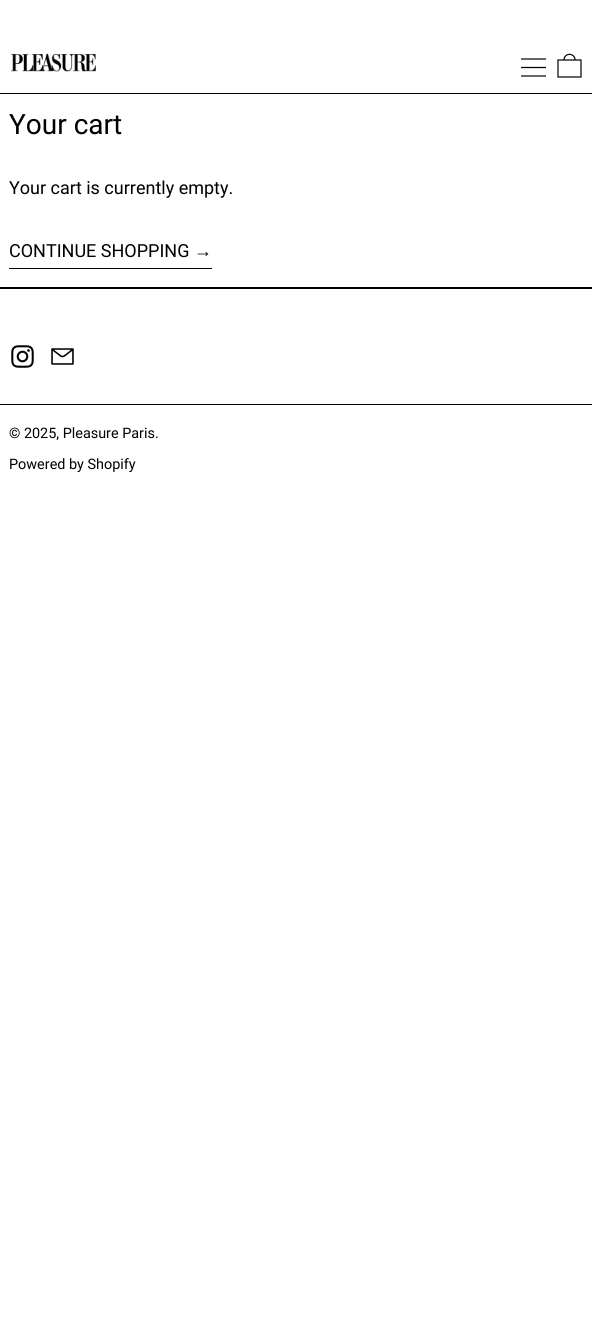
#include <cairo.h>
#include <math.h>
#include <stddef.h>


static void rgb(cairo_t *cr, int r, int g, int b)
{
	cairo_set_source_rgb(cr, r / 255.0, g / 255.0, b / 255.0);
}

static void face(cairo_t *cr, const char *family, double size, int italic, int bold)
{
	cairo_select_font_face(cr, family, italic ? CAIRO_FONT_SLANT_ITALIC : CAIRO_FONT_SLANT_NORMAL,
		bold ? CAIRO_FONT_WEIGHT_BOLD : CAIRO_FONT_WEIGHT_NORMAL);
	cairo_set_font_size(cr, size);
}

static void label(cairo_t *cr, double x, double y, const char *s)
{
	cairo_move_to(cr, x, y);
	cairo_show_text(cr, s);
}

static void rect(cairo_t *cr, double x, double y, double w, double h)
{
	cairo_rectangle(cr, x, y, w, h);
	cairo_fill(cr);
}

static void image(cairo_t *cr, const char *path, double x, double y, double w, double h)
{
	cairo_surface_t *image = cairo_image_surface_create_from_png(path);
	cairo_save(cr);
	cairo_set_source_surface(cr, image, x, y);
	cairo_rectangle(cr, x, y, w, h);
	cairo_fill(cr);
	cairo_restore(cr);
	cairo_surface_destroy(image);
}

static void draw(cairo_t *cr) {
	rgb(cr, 255, 255, 255);
	cairo_paint(cr);
	rgb(cr, 0, 0, 0);
	rect(cr, 0, 93, 592, 1);
	image(cr, "image0.png", 10, 53, 86, 19);
	cairo_new_path(cr);
	cairo_move_to(cr, 521, 59);
	cairo_line_to(cr, 546, 59);
	cairo_move_to(cr, 521, 67.5);
	cairo_line_to(cr, 546, 67.5);
	cairo_move_to(cr, 521, 76);
	cairo_line_to(cr, 546, 76);
	cairo_move_to(cr, 558, 60);
	cairo_line_to(cr, 581, 60);
	cairo_line_to(cr, 581, 77);
	cairo_line_to(cr, 558, 77);
	cairo_close_path(cr);
	cairo_move_to(cr, 575, 60);
	cairo_curve_to(cr, 575, 52.5, 564, 52.5, 564, 60);
	cairo_set_line_width(cr, 1.2);
	cairo_stroke(cr);
	rect(cr, 0, 287, 592, 2);
	face(cr, "Roboto", 28, 0, 0);
	label(cr, 9, 134, "Your cart");
	face(cr, "Roboto", 18, 0, 0);
	label(cr, 9, 194, "Your cart is currently empty.");
	rect(cr, 9, 268, 203, 1);
	label(cr, 9, 257, "CONTINUE SHOPPING");
	face(cr, "Liberation Sans", 18, 0, 0);
	label(cr, 194, 257, "→");
	rect(cr, 0, 404, 592, 1);
	image(cr, "image1.png", 11, 345, 23, 23);
	image(cr, "image2.png", 51, 348, 23, 17);
	face(cr, "Roboto", 14.4, 0, 0);
	label(cr, 9, 438, "© 2025, Pleasure Paris.");
	label(cr, 9, 469, "Powered by Shopify");
}

int main(void) {
	cairo_surface_t *surface = cairo_image_surface_create(CAIRO_FORMAT_RGB24, 592, 1322);
	cairo_t *cr = cairo_create(surface);
	cairo_font_options_t *options = cairo_font_options_create();
	cairo_font_options_set_hint_metrics(options, CAIRO_HINT_METRICS_OFF);
	cairo_font_options_set_hint_style(options, CAIRO_HINT_STYLE_NONE);
	cairo_set_font_options(cr, options);
	cairo_set_miter_limit(cr, 4);
	draw(cr);
	cairo_surface_write_to_png(surface, "render.png");
	cairo_font_options_destroy(options);
	cairo_destroy(cr);
	cairo_surface_destroy(surface);
	return 0;
}
